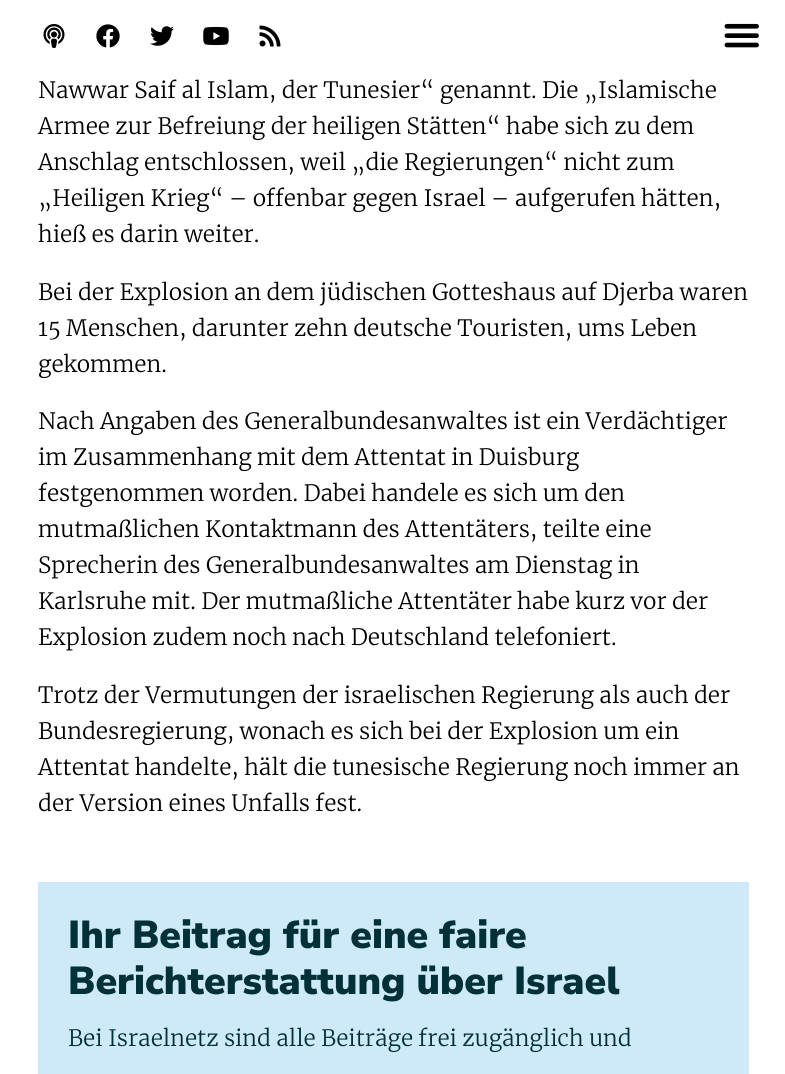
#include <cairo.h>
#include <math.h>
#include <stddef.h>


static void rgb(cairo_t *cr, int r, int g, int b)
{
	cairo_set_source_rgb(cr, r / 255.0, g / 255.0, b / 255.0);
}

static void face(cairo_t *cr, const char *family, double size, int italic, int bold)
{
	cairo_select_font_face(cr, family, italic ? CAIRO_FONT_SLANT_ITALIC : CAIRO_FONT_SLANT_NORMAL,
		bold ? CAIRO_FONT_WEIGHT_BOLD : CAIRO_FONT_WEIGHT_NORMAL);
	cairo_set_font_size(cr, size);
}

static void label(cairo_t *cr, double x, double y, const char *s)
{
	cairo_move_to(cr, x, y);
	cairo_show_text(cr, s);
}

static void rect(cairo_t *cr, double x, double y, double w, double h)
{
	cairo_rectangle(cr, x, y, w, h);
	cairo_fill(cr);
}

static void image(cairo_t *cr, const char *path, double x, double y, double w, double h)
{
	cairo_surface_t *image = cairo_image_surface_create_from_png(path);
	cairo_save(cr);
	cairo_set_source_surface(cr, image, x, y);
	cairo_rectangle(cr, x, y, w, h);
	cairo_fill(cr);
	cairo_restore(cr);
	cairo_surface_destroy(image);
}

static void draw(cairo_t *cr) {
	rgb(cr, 255, 255, 255);
	cairo_paint(cr);
	image(cr, "image0.png", 43, 24, 22, 24);
	image(cr, "image1.png", 96, 24, 24, 24);
	image(cr, "image2.png", 150, 26, 24, 20);
	image(cr, "image3.png", 203, 27, 26, 18);
	image(cr, "image4.png", 259, 25, 22, 22);
	image(cr, "image5.png", 724, 23, 35, 25);
	face(cr, "Merriweather Light", 22.5, 0, 0);
	rgb(cr, 0, 0, 0);
	label(cr, 38, 98, "Nawwar Saif al Islam, der Tunesier“ genannt. Die „Islamische");
	label(cr, 38, 134, "Armee zur Befreiung der heiligen Stätten“ habe sich zu dem");
	label(cr, 38, 170, "Anschlag entschlossen, weil „die Regierungen“ nicht zum");
	label(cr, 38, 206, "„Heiligen Krieg“ – offenbar gegen Israel – aufgerufen hätten,");
	label(cr, 38, 242, "hieß es darin weiter.");
	label(cr, 38, 300, "Bei der Explosion an dem jüdischen Gotteshaus auf Djerba waren");
	label(cr, 38, 336, "15 Menschen, darunter zehn deutsche Touristen, ums Leben");
	label(cr, 38, 372, "gekommen.");
	label(cr, 38, 429, "Nach Angaben des Generalbundesanwaltes ist ein Verdächtiger");
	label(cr, 38, 465, "im Zusammenhang mit dem Attentat in Duisburg");
	label(cr, 38, 501, "festgenommen worden. Dabei handele es sich um den");
	label(cr, 38, 537, "mutmaßlichen Kontaktmann des Attentäters, teilte eine");
	label(cr, 38, 573, "Sprecherin des Generalbundesanwaltes am Dienstag in");
	label(cr, 38, 609, "Karlsruhe mit. Der mutmaßliche Attentäter habe kurz vor der");
	label(cr, 38, 645, "Explosion zudem noch nach Deutschland telefoniert.");
	label(cr, 38, 703, "Trotz der Vermutungen der israelischen Regierung als auch der");
	label(cr, 38, 739, "Bundesregierung, wonach es sich bei der Explosion um ein");
	label(cr, 38, 775, "Attentat handelte, hält die tunesische Regierung noch immer an");
	label(cr, 38, 811, "der Version eines Unfalls fest.");
	rgb(cr, 206, 233, 247);
	rect(cr, 38, 882, 711, 192);
	face(cr, "Nunito Sans Black", 39, 0, 0);
	rgb(cr, 0, 48, 57);
	label(cr, 68, 948, "Ihr Beitrag für eine faire");
	label(cr, 68, 994, "Berichterstattung über Israel");
	face(cr, "Merriweather Light", 22.5, 0, 0);
	label(cr, 68, 1046, "Bei Israelnetz sind alle Beiträge frei zugänglich und");
}

int main(void) {
	cairo_surface_t *surface = cairo_image_surface_create(CAIRO_FORMAT_RGB24, 785, 1074);
	cairo_t *cr = cairo_create(surface);
	cairo_font_options_t *options = cairo_font_options_create();
	cairo_font_options_set_hint_metrics(options, CAIRO_HINT_METRICS_OFF);
	cairo_font_options_set_hint_style(options, CAIRO_HINT_STYLE_NONE);
	cairo_set_font_options(cr, options);
	cairo_set_miter_limit(cr, 4);
	draw(cr);
	cairo_surface_write_to_png(surface, "render.png");
	cairo_font_options_destroy(options);
	cairo_destroy(cr);
	cairo_surface_destroy(surface);
	return 0;
}
